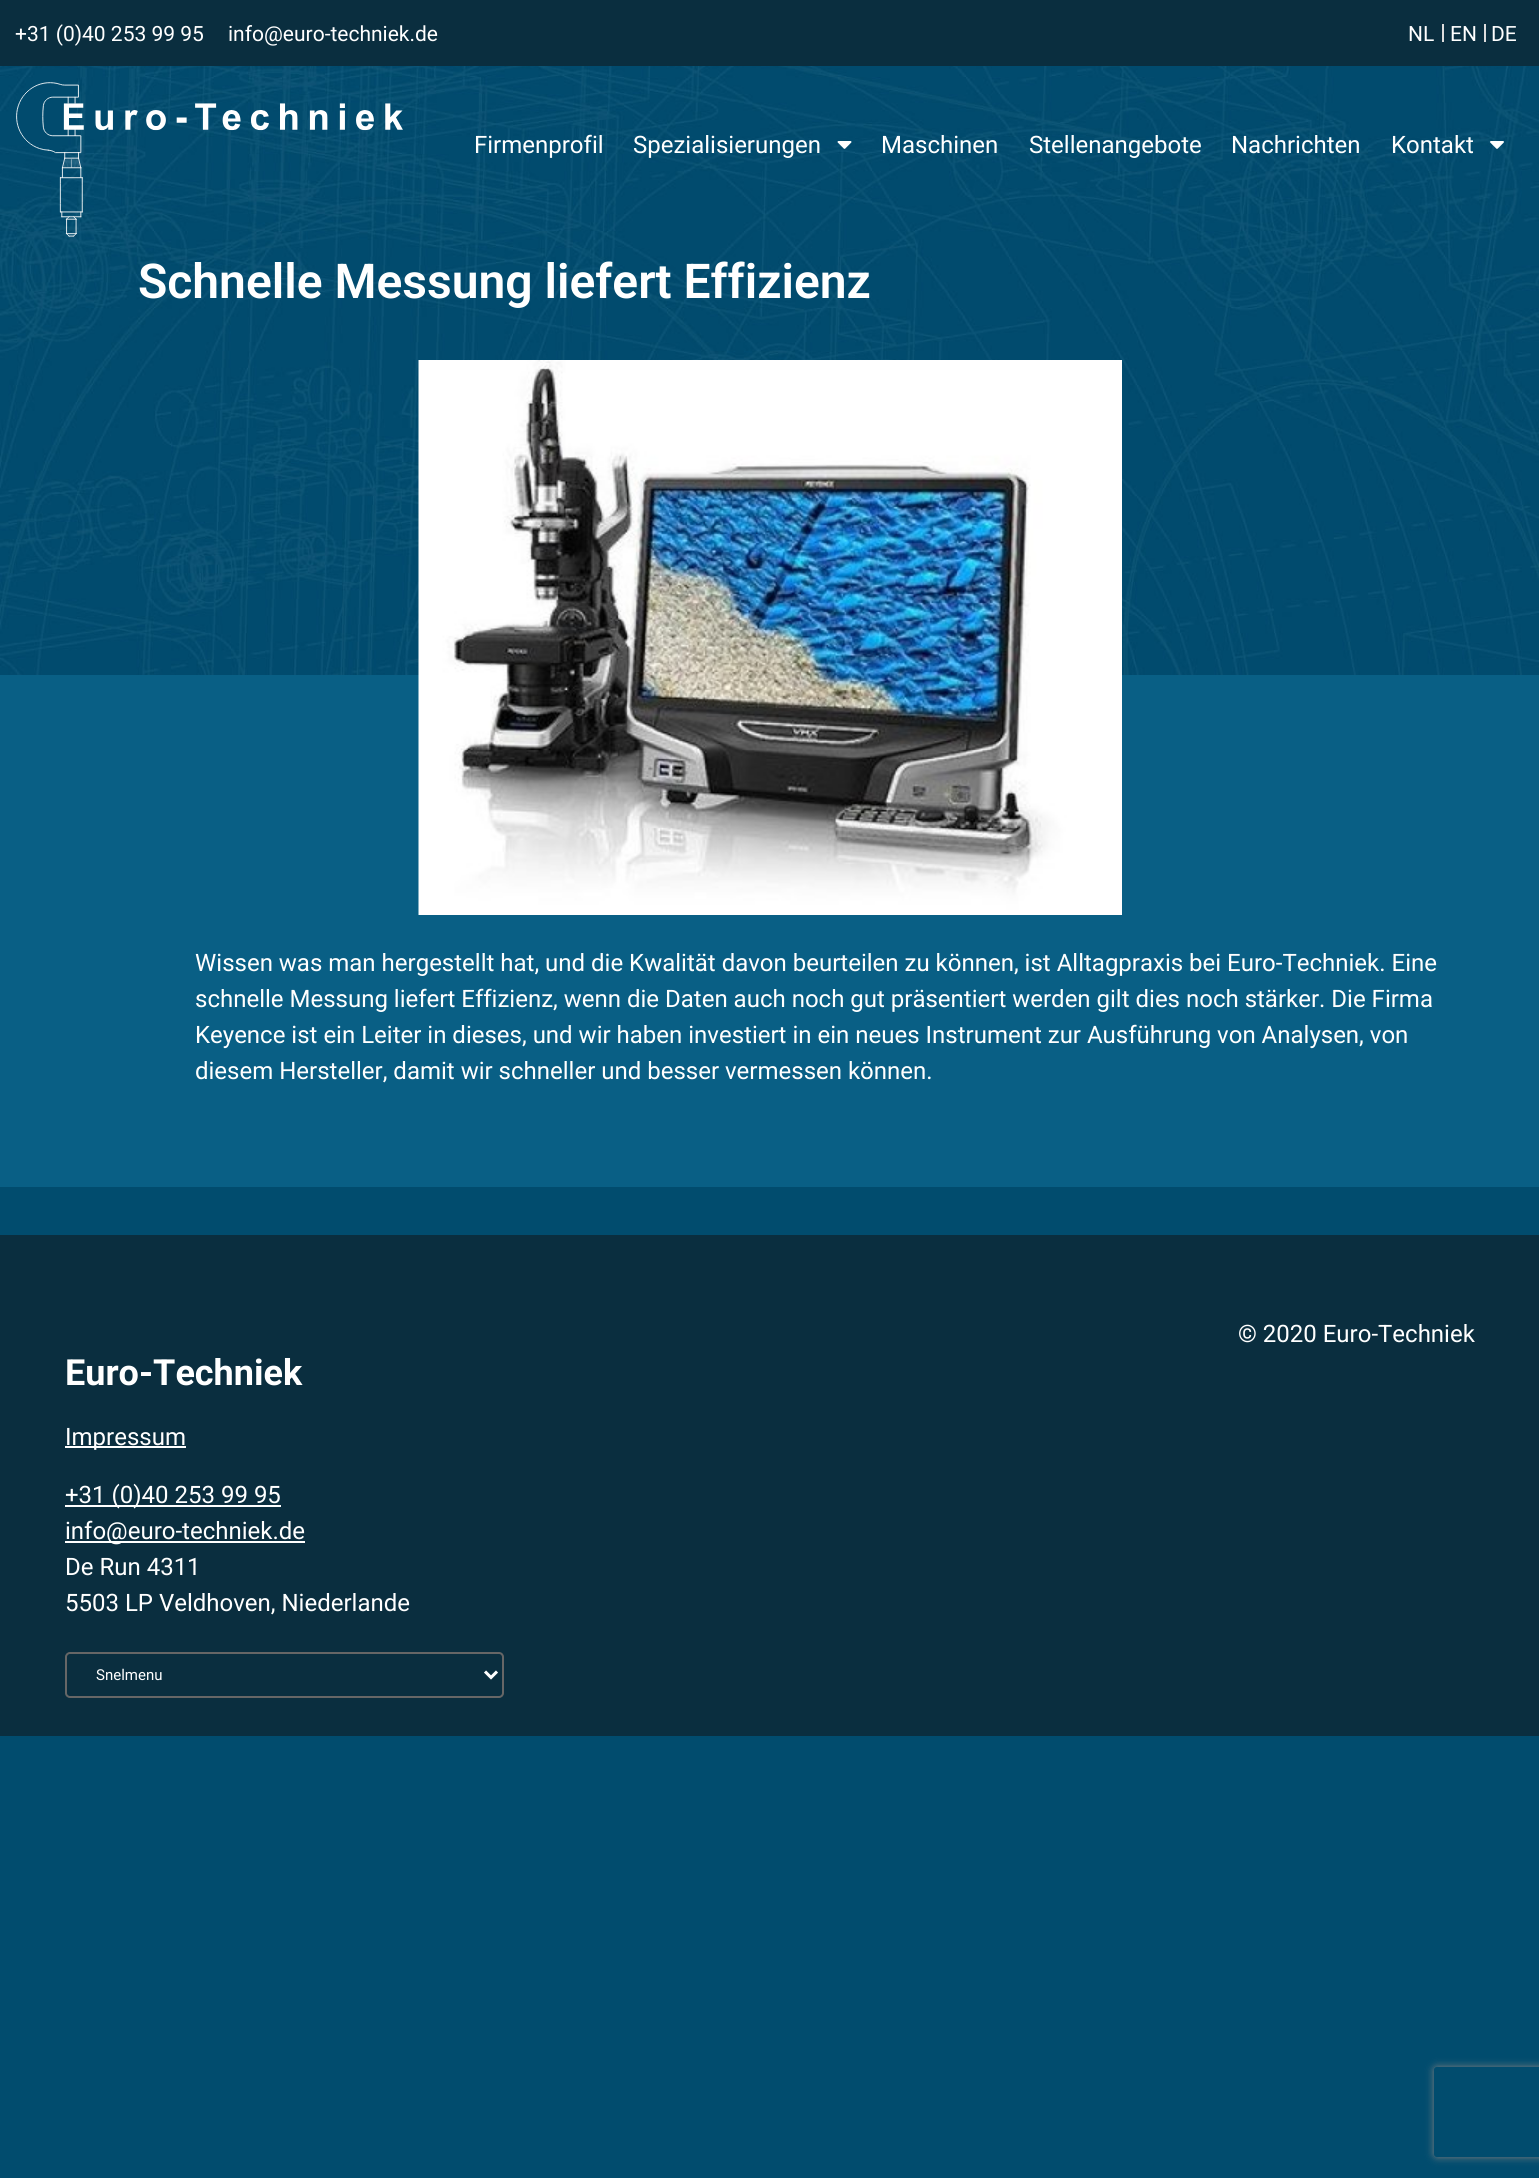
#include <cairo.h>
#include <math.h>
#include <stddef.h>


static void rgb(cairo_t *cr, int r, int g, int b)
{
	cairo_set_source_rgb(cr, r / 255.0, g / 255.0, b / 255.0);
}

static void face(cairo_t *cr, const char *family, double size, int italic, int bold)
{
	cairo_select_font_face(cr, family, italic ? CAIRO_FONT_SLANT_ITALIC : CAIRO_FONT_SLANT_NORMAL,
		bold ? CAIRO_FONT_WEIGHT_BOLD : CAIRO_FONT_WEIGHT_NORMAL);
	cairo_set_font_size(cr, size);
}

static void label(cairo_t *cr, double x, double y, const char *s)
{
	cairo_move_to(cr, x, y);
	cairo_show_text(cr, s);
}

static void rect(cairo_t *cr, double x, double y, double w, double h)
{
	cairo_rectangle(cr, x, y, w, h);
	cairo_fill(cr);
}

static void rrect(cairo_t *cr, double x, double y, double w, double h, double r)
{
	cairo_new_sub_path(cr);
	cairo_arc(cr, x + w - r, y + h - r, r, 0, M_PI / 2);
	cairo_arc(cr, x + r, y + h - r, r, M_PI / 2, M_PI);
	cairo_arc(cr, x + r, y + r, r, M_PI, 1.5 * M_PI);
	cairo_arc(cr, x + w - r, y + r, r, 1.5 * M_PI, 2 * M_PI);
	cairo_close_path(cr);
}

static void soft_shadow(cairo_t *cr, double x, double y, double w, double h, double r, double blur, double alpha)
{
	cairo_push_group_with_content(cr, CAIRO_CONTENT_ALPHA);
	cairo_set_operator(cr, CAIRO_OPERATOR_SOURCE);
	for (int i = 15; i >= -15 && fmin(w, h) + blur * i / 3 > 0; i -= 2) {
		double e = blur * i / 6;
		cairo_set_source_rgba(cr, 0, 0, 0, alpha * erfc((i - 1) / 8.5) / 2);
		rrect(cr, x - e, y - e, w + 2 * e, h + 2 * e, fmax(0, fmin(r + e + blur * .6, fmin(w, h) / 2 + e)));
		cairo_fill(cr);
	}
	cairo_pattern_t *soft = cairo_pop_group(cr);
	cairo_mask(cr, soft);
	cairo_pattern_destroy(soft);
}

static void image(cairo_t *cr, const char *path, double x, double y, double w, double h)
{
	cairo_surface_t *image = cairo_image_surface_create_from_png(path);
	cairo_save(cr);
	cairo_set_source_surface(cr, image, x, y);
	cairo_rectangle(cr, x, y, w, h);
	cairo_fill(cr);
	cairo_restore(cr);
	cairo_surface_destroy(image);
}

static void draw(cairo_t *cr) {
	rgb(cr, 1, 76, 110);
	cairo_paint(cr);
	image(cr, "image0.png", 0, 66, 1539, 609);
	rgb(cr, 10, 46, 63);
	rect(cr, 0, 0, 1539, 66);
	face(cr, "Roboto", 21, 0, 0);
	rgb(cr, 255, 255, 255);
	label(cr, 15, 41, "+31 (0)40 253 99 95");
	label(cr, 228, 41, "info@euro-techniek.de");
	label(cr, 1408, 41, "NL");
	rgb(cr, 221, 221, 221);
	rect(cr, 1442, 24, 2, 18);
	rgb(cr, 255, 255, 255);
	label(cr, 1450, 41, "EN");
	rgb(cr, 221, 221, 221);
	rect(cr, 1484, 24, 2, 18);
	rgb(cr, 255, 255, 255);
	label(cr, 1491, 41, "DE");
	image(cr, "image1.png", 16, 82, 387, 155);
	face(cr, "Roboto", 24, 0, 0);
	label(cr, 474, 153, "Firmenprofil");
	label(cr, 633, 153, "Spezialisierungen");
	image(cr, "image2.png", 837, 141, 15, 8);
	label(cr, 881, 153, "Maschinen");
	label(cr, 1029, 153, "Stellenangebote");
	label(cr, 1231, 153, "Nachrichten");
	label(cr, 1391, 153, "Kontakt");
	image(cr, "image3.png", 1490, 141, 14, 8);
	face(cr, "Roboto SemiBold", 48, 0, 0);
	label(cr, 138, 298, "Schnelle Messung liefert Effizienz");
	rgb(cr, 9, 95, 133);
	rect(cr, 0, 675, 1539, 512);
	image(cr, "image4.png", 418, 360, 704, 555);
	face(cr, "Roboto", 24, 0, 0);
	rgb(cr, 255, 255, 255);
	label(cr, 195, 971, "Wissen was man hergestellt hat, und die Kwalität davon beurteilen zu können, ist Alltagpraxis bei Euro-Techniek. Eine");
	label(cr, 195, 1007, "schnelle Messung liefert Effizienz, wenn die Daten auch noch gut präsentiert werden gilt dies noch stärker. Die Firma");
	label(cr, 195, 1043, "Keyence ist ein Leiter in dieses, und wir haben investiert in ein neues Instrument zur Ausführung von Analysen, von");
	label(cr, 195, 1079, "diesem Hersteller, damit wir schneller und besser vermessen können.");
	rgb(cr, 10, 46, 63);
	rect(cr, 0, 1235, 1539, 501);
	rgb(cr, 255, 255, 255);
	label(cr, 1238, 1342, "© 2020 Euro-Techniek");
	face(cr, "Roboto", 36, 0, 1);
	label(cr, 65, 1385, "Euro-Techniek");
	rect(cr, 65, 1446, 121, 2);
	face(cr, "Roboto", 24, 0, 0);
	label(cr, 65, 1445, "Impressum");
	rect(cr, 65, 1505, 216, 2);
	label(cr, 65, 1503, "+31 (0)40 253 99 95");
	rect(cr, 65, 1541, 240, 2);
	label(cr, 65, 1539, "info@euro-techniek.de");
	label(cr, 65, 1575, "De Run 4311");
	label(cr, 65, 1611, "5503 LP Veldhoven, Niederlande");
	rrect(cr, 66, 1653, 437, 44, 4);
	rgb(cr, 102, 102, 102);
	cairo_stroke(cr);
	cairo_new_path(cr);
	cairo_move_to(cr, 485, 1671.5);
	cairo_line_to(cr, 491, 1677.5);
	cairo_line_to(cr, 497, 1671.5);
	rgb(cr, 255, 255, 255);
	cairo_set_line_width(cr, 3);
	cairo_stroke(cr);
	face(cr, "Roboto", 15, 0, 0);
	label(cr, 96, 1680, "Snelmenu");
	cairo_save(cr);
	cairo_set_fill_rule(cr, CAIRO_FILL_RULE_EVEN_ODD);
	cairo_new_path(cr);
	cairo_move_to(cr, 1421, 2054);
	cairo_line_to(cr, 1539, 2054);
	cairo_line_to(cr, 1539, 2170);
	cairo_line_to(cr, 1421, 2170);
	cairo_close_path(cr);
	cairo_move_to(cr, 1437, 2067);
	cairo_line_to(cr, 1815, 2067);
	cairo_curve_to(cr, 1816.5, 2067, 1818, 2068.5, 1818, 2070);
	cairo_line_to(cr, 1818, 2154);
	cairo_curve_to(cr, 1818, 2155.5, 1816.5, 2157, 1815, 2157);
	cairo_line_to(cr, 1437, 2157);
	cairo_curve_to(cr, 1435.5, 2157, 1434, 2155.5, 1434, 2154);
	cairo_line_to(cr, 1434, 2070);
	cairo_curve_to(cr, 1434, 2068.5, 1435.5, 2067, 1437, 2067);
	cairo_close_path(cr);
	cairo_clip(cr);
	rgb(cr, 128, 128, 128);
	soft_shadow(cr, 1434, 2067, 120, 90, 3, 4, 1);
	cairo_restore(cr);
}

int main(void) {
	cairo_surface_t *surface = cairo_image_surface_create(CAIRO_FORMAT_RGB24, 1539, 2178);
	cairo_t *cr = cairo_create(surface);
	cairo_font_options_t *options = cairo_font_options_create();
	cairo_font_options_set_hint_metrics(options, CAIRO_HINT_METRICS_OFF);
	cairo_font_options_set_hint_style(options, CAIRO_HINT_STYLE_NONE);
	cairo_set_font_options(cr, options);
	cairo_set_miter_limit(cr, 4);
	draw(cr);
	cairo_surface_write_to_png(surface, "render.png");
	cairo_font_options_destroy(options);
	cairo_destroy(cr);
	cairo_surface_destroy(surface);
	return 0;
}
